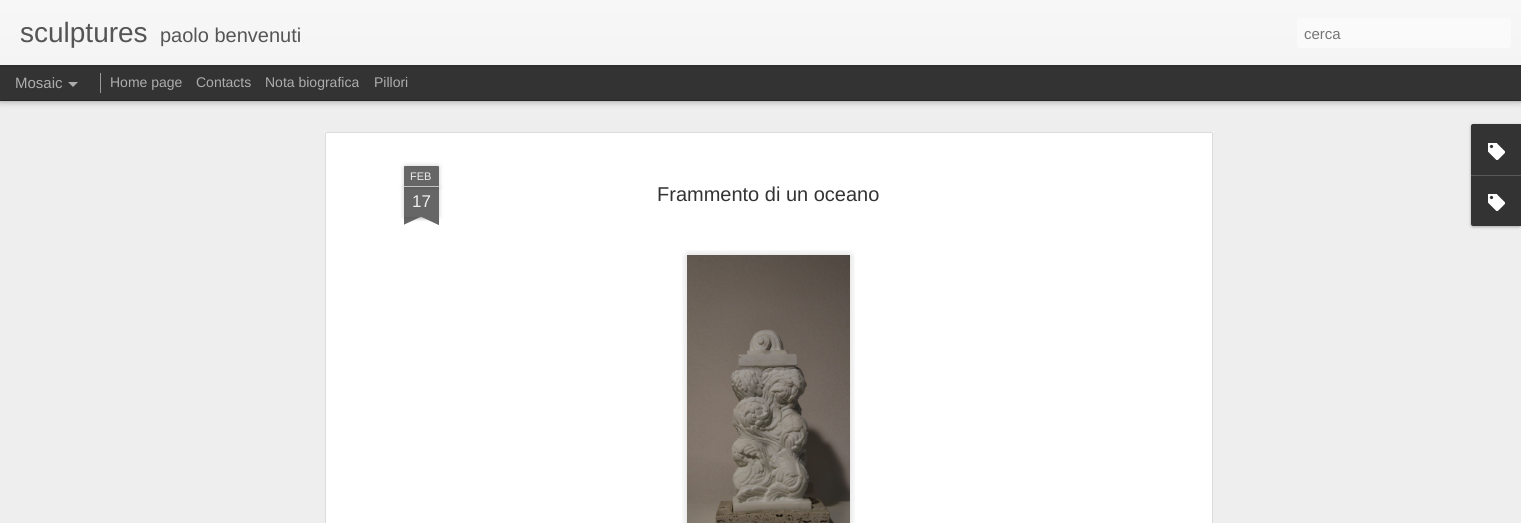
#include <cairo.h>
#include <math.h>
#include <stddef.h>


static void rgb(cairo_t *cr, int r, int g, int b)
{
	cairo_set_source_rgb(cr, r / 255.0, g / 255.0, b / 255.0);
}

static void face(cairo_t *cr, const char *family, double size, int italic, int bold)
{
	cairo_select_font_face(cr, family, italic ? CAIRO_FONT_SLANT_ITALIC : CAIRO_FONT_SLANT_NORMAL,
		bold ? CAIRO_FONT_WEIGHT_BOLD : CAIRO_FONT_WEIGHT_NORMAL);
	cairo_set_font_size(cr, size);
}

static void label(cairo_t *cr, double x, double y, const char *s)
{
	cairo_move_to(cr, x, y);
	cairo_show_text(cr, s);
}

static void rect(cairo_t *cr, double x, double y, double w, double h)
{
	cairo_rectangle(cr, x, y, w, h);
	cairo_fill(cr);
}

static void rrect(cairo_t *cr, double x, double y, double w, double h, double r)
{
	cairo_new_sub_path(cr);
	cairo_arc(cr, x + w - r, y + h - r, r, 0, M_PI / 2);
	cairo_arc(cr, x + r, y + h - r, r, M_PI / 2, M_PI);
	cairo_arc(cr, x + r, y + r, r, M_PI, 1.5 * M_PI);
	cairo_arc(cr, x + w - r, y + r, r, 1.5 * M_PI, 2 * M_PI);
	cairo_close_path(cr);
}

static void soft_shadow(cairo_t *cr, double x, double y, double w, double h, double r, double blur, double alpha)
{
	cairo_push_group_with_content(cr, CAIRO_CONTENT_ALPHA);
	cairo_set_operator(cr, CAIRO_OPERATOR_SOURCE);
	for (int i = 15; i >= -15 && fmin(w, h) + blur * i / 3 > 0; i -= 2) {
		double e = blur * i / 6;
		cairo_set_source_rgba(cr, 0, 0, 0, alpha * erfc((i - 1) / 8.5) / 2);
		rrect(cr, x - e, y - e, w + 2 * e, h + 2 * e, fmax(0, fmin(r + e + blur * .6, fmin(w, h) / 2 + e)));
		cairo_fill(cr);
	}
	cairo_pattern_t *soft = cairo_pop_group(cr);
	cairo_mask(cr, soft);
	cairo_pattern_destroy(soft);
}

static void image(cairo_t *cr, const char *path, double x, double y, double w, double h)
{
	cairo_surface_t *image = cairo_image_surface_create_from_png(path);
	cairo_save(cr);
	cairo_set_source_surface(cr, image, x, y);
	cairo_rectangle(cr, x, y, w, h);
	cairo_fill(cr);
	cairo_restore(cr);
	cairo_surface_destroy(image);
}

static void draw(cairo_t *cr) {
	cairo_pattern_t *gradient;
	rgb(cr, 51, 51, 51);
	cairo_paint(cr);
	rgb(cr, 238, 238, 238);
	rect(cr, 0, 101, 1521, 422);
	rgb(cr, 0, 0, 0);
	soft_shadow(cr, 0, 65, 1521, 35, 0, 4, 0.5);
	rgb(cr, 51, 51, 51);
	rect(cr, 0, 65, 1521, 35);
	rgb(cr, 153, 153, 153);
	rect(cr, 100, 73, 1, 20);
	rgb(cr, 0, 0, 0);
	soft_shadow(cr, 0, 0, 1521, 65, 0, 2.5, 0.3);
	gradient = cairo_pattern_create_linear(0, 0, 0, 65);
	cairo_pattern_add_color_stop_rgba(gradient, 0, 0.969, 0.969, 0.969, 1);
	cairo_pattern_add_color_stop_rgba(gradient, 1, 0.957, 0.957, 0.957, 1);
	cairo_set_source(cr, gradient);
	cairo_pattern_destroy(gradient);
	rect(cr, 0, 0, 1521, 65);
	face(cr, "Liberation Sans", 28, 0, 0);
	rgb(cr, 85, 85, 85);
	label(cr, 20, 42, "sculptures");
	face(cr, "Liberation Sans", 20, 0, 0);
	label(cr, 160, 42, "paolo benvenuti");
	rgb(cr, 250, 250, 250);
	rrect(cr, 1297, 18, 214, 30, 3);
	cairo_fill(cr);
	face(cr, "Liberation Sans", 15, 0, 0);
	rgb(cr, 117, 117, 117);
	label(cr, 1304, 39, "cerca");
	rgb(cr, 173, 173, 173);
	label(cr, 15, 88, "Mosaic");
	cairo_new_path(cr);
	cairo_move_to(cr, 68, 82);
	cairo_line_to(cr, 78, 82);
	cairo_line_to(cr, 73, 87);
	cairo_close_path(cr);
	cairo_fill(cr);
	face(cr, "Liberation Sans", 14, 0, 0);
	label(cr, 110, 87, "Home page");
	label(cr, 196, 87, "Contacts");
	label(cr, 265, 87, "Nota biografica");
	label(cr, 374, 87, "Pillori");
	rgb(cr, 255, 255, 255);
	rect(cr, 324, 131, 890, 392);
	image(cr, "image0.png", 324, 131, 890, 392);
	rgb(cr, 0, 0, 0);
	soft_shadow(cr, 404, 187, 35, 30, 0, 2.5, 0.2);
	rgb(cr, 102, 102, 102);
	rect(cr, 404, 187, 35, 30);
	rgb(cr, 0, 0, 0);
	soft_shadow(cr, 404, 166, 35, 21, 1, 2.5, 0.2);
	rgb(cr, 102, 102, 102);
	cairo_new_path(cr);
	cairo_move_to(cr, 405, 166);
	cairo_line_to(cr, 438, 166);
	cairo_curve_to(cr, 438.5, 166, 439, 166.5, 439, 167);
	cairo_line_to(cr, 439, 187);
	cairo_line_to(cr, 404, 187);
	cairo_line_to(cr, 404, 167);
	cairo_curve_to(cr, 404, 166.5, 404.5, 166, 405, 166);
	cairo_close_path(cr);
	cairo_fill(cr);
	rgb(cr, 194, 194, 194);
	rect(cr, 404, 186, 35, 1);
	face(cr, "Liberation Sans", 11, 0, 0);
	rgb(cr, 238, 238, 238);
	label(cr, 410, 180, "FEB");
	face(cr, "Liberation Sans", 17, 0, 0);
	label(cr, 412, 207, "17");
	cairo_save(cr);
	cairo_rectangle(cr, 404, 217, 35, 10);
	cairo_clip(cr);
	rgb(cr, 0, 0, 0);
	soft_shadow(cr, 395, 207, 50, 10, 0, 2.5, 0.2);
	cairo_restore(cr);
	cairo_save(cr);
	cairo_rectangle(cr, 404, 217, 35, 10);
	cairo_clip(cr);
	rgb(cr, 102, 102, 102);
	cairo_new_path(cr);
	cairo_move_to(cr, 395, 218);
	cairo_line_to(cr, 440, 197);
	cairo_line_to(cr, 444, 206);
	cairo_line_to(cr, 399, 227);
	cairo_close_path(cr);
	cairo_fill(cr);
	cairo_restore(cr);
	cairo_save(cr);
	cairo_rectangle(cr, 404, 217, 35, 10);
	cairo_clip(cr);
	rgb(cr, 0, 0, 0);
	soft_shadow(cr, 398, 207, 50, 10, 0, 2.5, 0.2);
	cairo_restore(cr);
	cairo_save(cr);
	cairo_rectangle(cr, 404, 217, 35, 10);
	cairo_clip(cr);
	rgb(cr, 102, 102, 102);
	cairo_new_path(cr);
	cairo_move_to(cr, 402, 197);
	cairo_line_to(cr, 447, 218);
	cairo_line_to(cr, 443, 227);
	cairo_line_to(cr, 398, 206);
	cairo_close_path(cr);
	cairo_fill(cr);
	cairo_restore(cr);
	face(cr, "Liberation Sans", 20, 0, 0);
	rgb(cr, 51, 51, 51);
	label(cr, 657, 201, "Frammento di un oceano");
	image(cr, "image1.png", 682, 250, 173, 273);
	image(cr, "image2.png", 753, 345, 58, 176);
	rgb(cr, 0, 0, 0);
	soft_shadow(cr, 1471, 125, 50, 102, 2, 1.5, 0.3);
	rgb(cr, 51, 51, 51);
	cairo_new_path(cr);
	cairo_move_to(cr, 1473, 124);
	cairo_line_to(cr, 1521, 124);
	cairo_line_to(cr, 1521, 175);
	cairo_line_to(cr, 1471, 175);
	cairo_line_to(cr, 1471, 126);
	cairo_curve_to(cr, 1471, 125, 1472, 124, 1473, 124);
	cairo_close_path(cr);
	cairo_fill(cr);
	image(cr, "image3.png", 1488, 143, 17, 17);
	cairo_new_path(cr);
	cairo_move_to(cr, 1471, 175);
	cairo_line_to(cr, 1521, 175);
	cairo_line_to(cr, 1521, 226);
	cairo_line_to(cr, 1473, 226);
	cairo_curve_to(cr, 1472, 226, 1471, 225, 1471, 224);
	cairo_close_path(cr);
	cairo_fill(cr);
	rgb(cr, 88, 88, 88);
	rect(cr, 1471, 175, 50, 1);
	image(cr, "image3.png", 1488, 194, 17, 17);
}

int main(void) {
	cairo_surface_t *surface = cairo_image_surface_create(CAIRO_FORMAT_RGB24, 1521, 523);
	cairo_t *cr = cairo_create(surface);
	cairo_font_options_t *options = cairo_font_options_create();
	cairo_font_options_set_hint_metrics(options, CAIRO_HINT_METRICS_OFF);
	cairo_font_options_set_hint_style(options, CAIRO_HINT_STYLE_NONE);
	cairo_set_font_options(cr, options);
	cairo_set_miter_limit(cr, 4);
	draw(cr);
	cairo_surface_write_to_png(surface, "render.png");
	cairo_font_options_destroy(options);
	cairo_destroy(cr);
	cairo_surface_destroy(surface);
	return 0;
}
